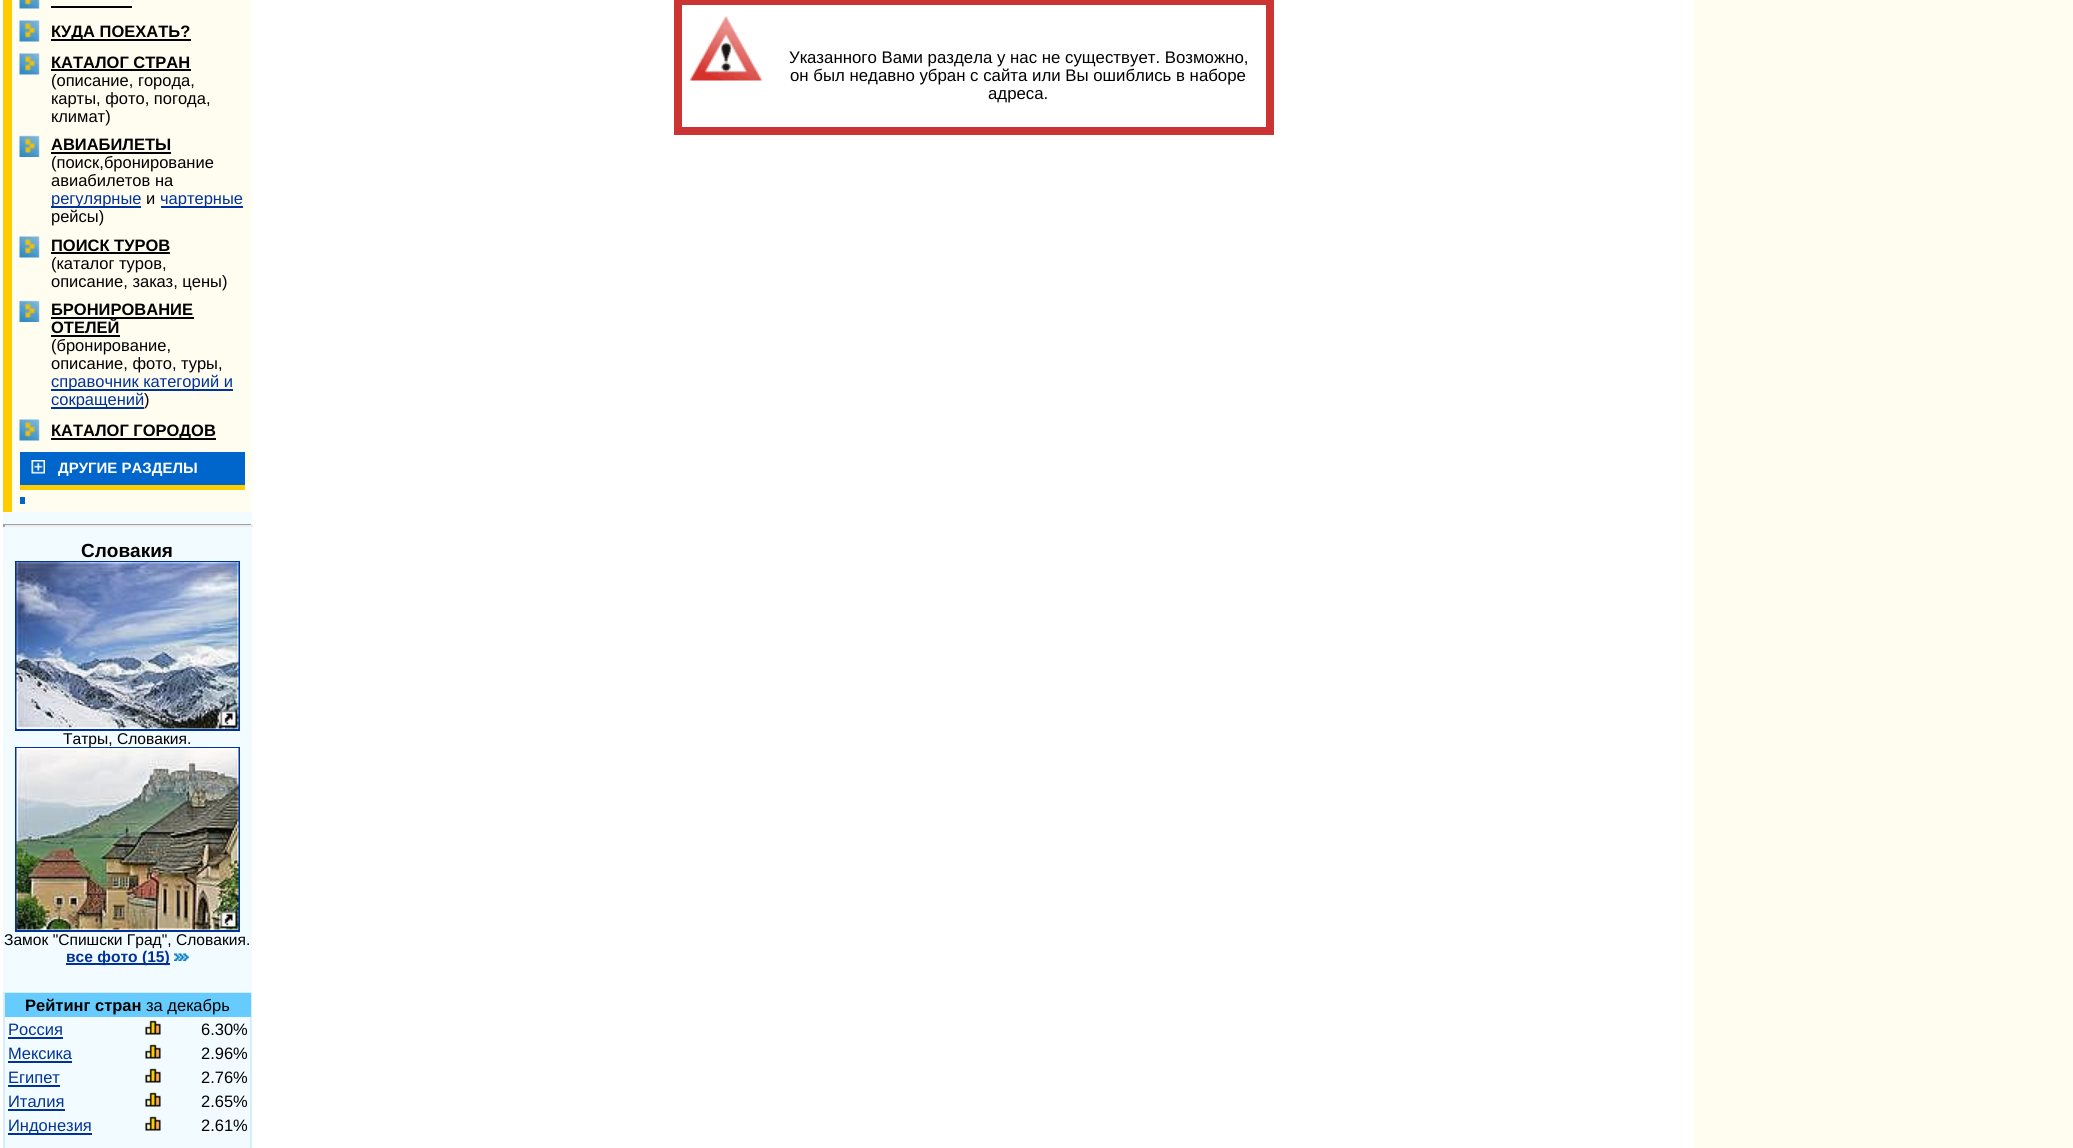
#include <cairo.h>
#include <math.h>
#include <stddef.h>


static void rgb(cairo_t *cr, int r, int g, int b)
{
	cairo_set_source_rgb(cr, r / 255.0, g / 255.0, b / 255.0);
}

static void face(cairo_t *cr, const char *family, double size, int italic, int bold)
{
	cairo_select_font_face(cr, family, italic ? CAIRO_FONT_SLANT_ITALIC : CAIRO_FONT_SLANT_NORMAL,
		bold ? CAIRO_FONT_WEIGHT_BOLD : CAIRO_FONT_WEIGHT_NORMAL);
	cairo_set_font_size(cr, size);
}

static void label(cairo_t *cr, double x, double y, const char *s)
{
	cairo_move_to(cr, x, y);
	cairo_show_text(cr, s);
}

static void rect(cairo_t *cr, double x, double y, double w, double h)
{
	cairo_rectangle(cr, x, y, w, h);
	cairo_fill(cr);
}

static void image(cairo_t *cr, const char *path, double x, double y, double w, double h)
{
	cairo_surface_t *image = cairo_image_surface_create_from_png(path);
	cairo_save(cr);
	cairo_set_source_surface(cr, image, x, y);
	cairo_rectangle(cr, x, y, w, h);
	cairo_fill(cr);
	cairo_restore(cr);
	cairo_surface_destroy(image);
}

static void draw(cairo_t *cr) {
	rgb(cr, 255, 255, 255);
	cairo_paint(cr);
	rgb(cr, 242, 251, 255);
	rect(cr, 3, 512, 249, 636);
	rgb(cr, 255, 204, 0);
	rect(cr, 3, 0, 9, 512);
	rgb(cr, 255, 252, 240);
	rect(cr, 12, 0, 240, 512);
	image(cr, "image0.png", 19, 0, 21, 9);
	rgb(cr, 0, 0, 0);
	rect(cr, 51, 6, 81, 2);
	image(cr, "image1.png", 19, 20, 21, 22);
	rect(cr, 51, 39, 140, 2);
	face(cr, "Liberation Sans", 16.5, 0, 1);
	label(cr, 51, 37, "КУДА ПОЕХАТЬ?");
	image(cr, "image1.png", 19, 53, 21, 22);
	label(cr, 51, 68, "КАТАЛОГ СТРАН");
	rect(cr, 51, 69, 140, 2);
	face(cr, "Liberation Sans", 16.5, 0, 0);
	label(cr, 51, 86, "(описание, города,");
	label(cr, 51, 104, "карты, фото, погода,");
	label(cr, 51, 122, "климат)");
	image(cr, "image2.png", 19, 135, 21, 22);
	face(cr, "Liberation Sans", 16.5, 0, 1);
	label(cr, 51, 150, "АВИАБИЛЕТЫ");
	rect(cr, 51, 152, 120, 2);
	face(cr, "Liberation Sans", 16.5, 0, 0);
	label(cr, 51, 168, "(поиск,бронирование");
	label(cr, 51, 186, "авиабилетов на");
	rgb(cr, 0, 51, 153);
	rect(cr, 51, 206, 90, 2);
	label(cr, 51, 204, "регулярные");
	rgb(cr, 0, 0, 0);
	label(cr, 146, 204, "и");
	rgb(cr, 0, 51, 153);
	rect(cr, 161, 206, 82, 2);
	label(cr, 160, 204, "чартерные");
	rgb(cr, 0, 0, 0);
	label(cr, 51, 222, "рейсы)");
	image(cr, "image1.png", 19, 236, 21, 22);
	face(cr, "Liberation Sans", 16.5, 0, 1);
	label(cr, 51, 251, "ПОИСК ТУРОВ");
	rect(cr, 51, 252, 119, 2);
	face(cr, "Liberation Sans", 16.5, 0, 0);
	label(cr, 51, 269, "(каталог туров,");
	label(cr, 51, 287, "описание, заказ, цены)");
	image(cr, "image2.png", 19, 300, 21, 22);
	face(cr, "Liberation Sans", 16.5, 0, 1);
	label(cr, 51, 315, "БРОНИРОВАНИЕ");
	rect(cr, 51, 317, 143, 2);
	label(cr, 51, 333, "ОТЕЛЕЙ");
	rect(cr, 51, 335, 69, 2);
	face(cr, "Liberation Sans", 16.5, 0, 0);
	label(cr, 51, 351, "(бронирование,");
	label(cr, 51, 369, "описание, фото, туры,");
	rgb(cr, 0, 51, 153);
	rect(cr, 51, 389, 182, 2);
	label(cr, 51, 387, "справочник категорий и");
	rect(cr, 51, 407, 93, 2);
	label(cr, 51, 405, "сокращений");
	rgb(cr, 0, 0, 0);
	label(cr, 144, 405, ")");
	image(cr, "image1.png", 19, 419, 21, 22);
	rect(cr, 51, 438, 165, 2);
	face(cr, "Liberation Sans", 16.5, 0, 1);
	label(cr, 51, 436, "КАТАЛОГ ГОРОДОВ");
	rgb(cr, 0, 102, 204);
	rect(cr, 20, 452, 225, 33);
	image(cr, "image3.png", 31, 460, 14, 14);
	face(cr, "Liberation Sans", 15, 0, 1);
	rgb(cr, 255, 255, 255);
	label(cr, 58, 473, "ДРУГИЕ РАЗДЕЛЫ");
	rgb(cr, 255, 204, 0);
	rect(cr, 20, 485, 225, 5);
	rgb(cr, 0, 102, 204);
	rect(cr, 20, 497, 5, 7);
	rgb(cr, 159, 159, 159);
	rect(cr, 3, 524, 249, 1);
	rgb(cr, 238, 238, 238);
	rect(cr, 251, 524, 2, 3);
	rect(cr, 3, 525, 249, 2);
	rgb(cr, 159, 159, 159);
	rect(cr, 3, 524, 2, 3);
	face(cr, "Liberation Sans", 19, 0, 1);
	rgb(cr, 0, 0, 0);
	label(cr, 81, 557, "Словакия");
	cairo_rectangle(cr, 16, 562, 223, 168);
	rgb(cr, 0, 51, 153);
	cairo_stroke(cr);
	image(cr, "image4.png", 16, 562, 223, 167);
	face(cr, "Liberation Sans", 15.6, 0, 0);
	rgb(cr, 0, 0, 0);
	label(cr, 63, 744, "Татры, Словакия.");
	cairo_rectangle(cr, 16, 748, 223, 183);
	rgb(cr, 0, 51, 153);
	cairo_stroke(cr);
	image(cr, "image5.png", 16, 748, 223, 182);
	rgb(cr, 0, 0, 0);
	label(cr, 4, 945, "Замок \"Спишски Град\", Словакия.");
	rgb(cr, 0, 51, 153);
	rect(cr, 66, 963, 104, 2);
	face(cr, "Liberation Sans", 15.6, 0, 1);
	label(cr, 66, 962, "все фото (15)");
	image(cr, "image6.png", 174, 953, 15, 8);
	cairo_rectangle(cr, 4, 993, 247, 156);
	rgb(cr, 213, 237, 253);
	cairo_stroke(cr);
	rgb(cr, 102, 204, 255);
	rect(cr, 5, 993, 246, 24);
	face(cr, "Liberation Sans", 16.5, 0, 1);
	rgb(cr, 0, 0, 0);
	label(cr, 25, 1011, "Рейтинг стран");
	face(cr, "Liberation Sans", 16.5, 0, 0);
	label(cr, 146, 1011, "за декабрь");
	rgb(cr, 0, 51, 153);
	label(cr, 8, 1035, "Россия");
	rect(cr, 8, 1037, 55, 2);
	image(cr, "image7.png", 145, 1020, 16, 15);
	rgb(cr, 0, 0, 0);
	label(cr, 201, 1035, "6.30%");
	rgb(cr, 0, 51, 153);
	label(cr, 8, 1059, "Мексика");
	rect(cr, 8, 1061, 64, 2);
	image(cr, "image7.png", 145, 1044, 16, 15);
	rgb(cr, 0, 0, 0);
	label(cr, 201, 1059, "2.96%");
	rgb(cr, 0, 51, 153);
	label(cr, 8, 1083, "Египет");
	rect(cr, 8, 1085, 52, 2);
	image(cr, "image7.png", 145, 1068, 16, 15);
	rgb(cr, 0, 0, 0);
	label(cr, 201, 1083, "2.76%");
	rgb(cr, 0, 51, 153);
	label(cr, 8, 1107, "Италия");
	rect(cr, 8, 1109, 57, 2);
	image(cr, "image7.png", 145, 1092, 16, 15);
	rgb(cr, 0, 0, 0);
	label(cr, 201, 1107, "2.65%");
	rgb(cr, 0, 51, 153);
	rect(cr, 8, 1133, 84, 2);
	label(cr, 8, 1131, "Индонезия");
	image(cr, "image7.png", 145, 1116, 16, 15);
	rgb(cr, 0, 0, 0);
	label(cr, 201, 1131, "2.61%");
	cairo_rectangle(cr, 678, 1, 592, 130);
	rgb(cr, 204, 51, 51);
	cairo_set_line_width(cr, 8);
	cairo_stroke(cr);
	image(cr, "image8.png", 689, 16, 74, 65);
	face(cr, "Liberation Sans", 16.8, 0, 0);
	rgb(cr, 0, 0, 0);
	label(cr, 789, 63, "Указанного Вами раздела у нас не существует. Возможно,");
	label(cr, 790, 81, "он был недавно убран с сайта или Вы ошиблись в наборе");
	label(cr, 988, 99, "адреса.");
	rgb(cr, 255, 252, 240);
	rect(cr, 1694, 0, 379, 1148);
}

int main(void) {
	cairo_surface_t *surface = cairo_image_surface_create(CAIRO_FORMAT_RGB24, 2073, 1148);
	cairo_t *cr = cairo_create(surface);
	cairo_font_options_t *options = cairo_font_options_create();
	cairo_font_options_set_hint_metrics(options, CAIRO_HINT_METRICS_OFF);
	cairo_font_options_set_hint_style(options, CAIRO_HINT_STYLE_NONE);
	cairo_set_font_options(cr, options);
	cairo_set_miter_limit(cr, 4);
	draw(cr);
	cairo_surface_write_to_png(surface, "render.png");
	cairo_font_options_destroy(options);
	cairo_destroy(cr);
	cairo_surface_destroy(surface);
	return 0;
}
